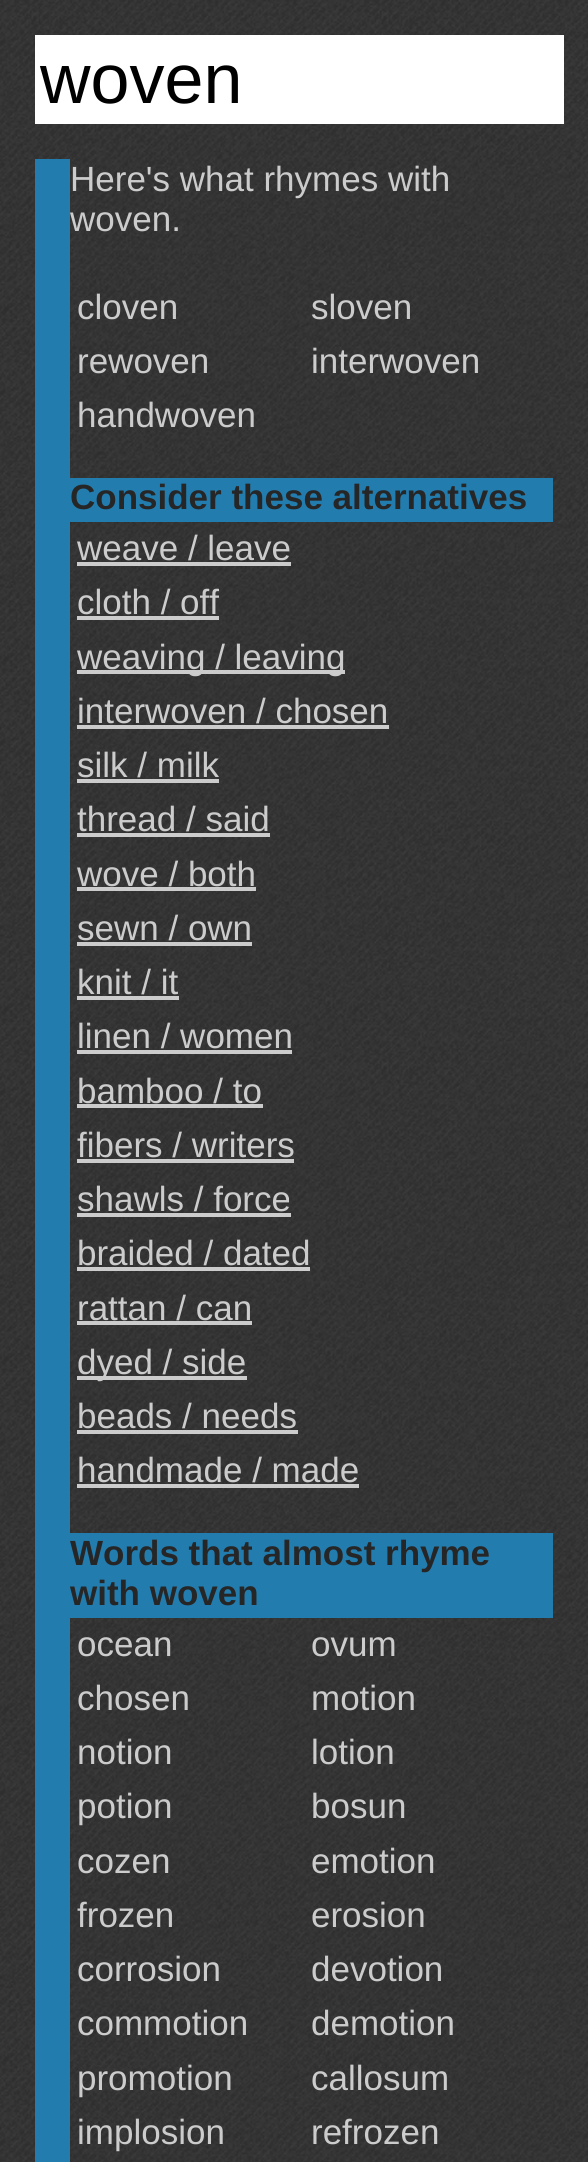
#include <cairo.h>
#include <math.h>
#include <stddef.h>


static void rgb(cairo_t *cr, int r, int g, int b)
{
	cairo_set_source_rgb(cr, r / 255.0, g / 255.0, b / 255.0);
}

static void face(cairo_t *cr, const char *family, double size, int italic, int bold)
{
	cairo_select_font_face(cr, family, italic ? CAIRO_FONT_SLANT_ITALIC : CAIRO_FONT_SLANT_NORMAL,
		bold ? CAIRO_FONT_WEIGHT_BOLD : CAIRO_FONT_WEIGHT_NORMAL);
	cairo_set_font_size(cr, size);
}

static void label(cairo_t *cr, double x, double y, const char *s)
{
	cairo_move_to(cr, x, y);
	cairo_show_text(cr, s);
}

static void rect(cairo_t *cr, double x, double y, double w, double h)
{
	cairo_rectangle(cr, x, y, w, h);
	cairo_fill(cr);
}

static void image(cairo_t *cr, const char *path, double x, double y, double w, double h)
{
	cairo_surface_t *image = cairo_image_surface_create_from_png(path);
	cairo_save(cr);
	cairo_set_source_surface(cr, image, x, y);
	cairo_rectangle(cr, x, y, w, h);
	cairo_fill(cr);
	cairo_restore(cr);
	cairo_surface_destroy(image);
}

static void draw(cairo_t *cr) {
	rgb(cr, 255, 255, 255);
	cairo_paint(cr);
	image(cr, "image0.png", 0, 0, 588, 2162);
	rgb(cr, 255, 255, 255);
	rect(cr, 35, 35, 529, 89);
	face(cr, "Liberation Sans", 70, 0, 0);
	rgb(cr, 0, 0, 0);
	label(cr, 40, 103, "woven");
	rgb(cr, 35, 124, 174);
	rect(cr, 35, 159, 35, 2003);
	face(cr, "Liberation Sans", 35, 0, 0);
	rgb(cr, 204, 204, 204);
	label(cr, 70, 191, "Here's what rhymes with");
	label(cr, 70, 231, "woven.");
	label(cr, 77, 319, "cloven");
	label(cr, 311, 319, "sloven");
	label(cr, 77, 373, "rewoven");
	label(cr, 311, 373, "interwoven");
	label(cr, 77, 427, "handwoven");
	rgb(cr, 35, 124, 174);
	rect(cr, 70, 478, 483, 44);
	face(cr, "Liberation Sans", 35, 0, 1);
	rgb(cr, 38, 38, 38);
	label(cr, 70, 509, "Consider these alternatives");
	face(cr, "Liberation Sans", 35, 0, 0);
	rgb(cr, 204, 204, 204);
	label(cr, 77, 560, "weave / leave");
	rect(cr, 77, 562, 214, 4);
	label(cr, 77, 614, "cloth / off");
	rect(cr, 77, 616, 142, 4);
	rect(cr, 77, 670, 268, 4);
	label(cr, 77, 669, "weaving / leaving");
	label(cr, 77, 723, "interwoven / chosen");
	rect(cr, 77, 725, 312, 4);
	label(cr, 77, 777, "silk / milk");
	rect(cr, 77, 779, 142, 4);
	label(cr, 77, 831, "thread / said");
	rect(cr, 77, 833, 193, 4);
	label(cr, 77, 886, "wove / both");
	rect(cr, 77, 887, 179, 4);
	label(cr, 77, 940, "sewn / own");
	rect(cr, 77, 942, 175, 4);
	label(cr, 77, 994, "knit / it");
	rect(cr, 77, 996, 102, 4);
	label(cr, 77, 1048, "linen / women");
	rect(cr, 77, 1050, 215, 4);
	label(cr, 77, 1103, "bamboo / to");
	rect(cr, 77, 1104, 186, 4);
	label(cr, 77, 1157, "fibers / writers");
	rect(cr, 77, 1159, 217, 4);
	label(cr, 77, 1211, "shawls / force");
	rect(cr, 77, 1213, 214, 4);
	label(cr, 77, 1265, "braided / dated");
	rect(cr, 77, 1267, 233, 4);
	label(cr, 77, 1320, "rattan / can");
	rect(cr, 77, 1321, 175, 4);
	rect(cr, 77, 1376, 170, 4);
	label(cr, 77, 1374, "dyed / side");
	label(cr, 77, 1428, "beads / needs");
	rect(cr, 77, 1430, 221, 4);
	label(cr, 77, 1482, "handmade / made");
	rect(cr, 77, 1484, 282, 4);
	rgb(cr, 35, 124, 174);
	rect(cr, 70, 1533, 483, 85);
	face(cr, "Liberation Sans", 35, 0, 1);
	rgb(cr, 38, 38, 38);
	label(cr, 70, 1565, "Words that almost rhyme");
	label(cr, 70, 1605, "with woven");
	face(cr, "Liberation Sans", 35, 0, 0);
	rgb(cr, 204, 204, 204);
	label(cr, 77, 1656, "ocean");
	label(cr, 311, 1656, "ovum");
	label(cr, 77, 1710, "chosen");
	label(cr, 311, 1710, "motion");
	label(cr, 77, 1764, "notion");
	label(cr, 311, 1764, "lotion");
	label(cr, 77, 1818, "potion");
	label(cr, 311, 1818, "bosun");
	label(cr, 77, 1873, "cozen");
	label(cr, 311, 1873, "emotion");
	label(cr, 77, 1927, "frozen");
	label(cr, 311, 1927, "erosion");
	label(cr, 77, 1981, "corrosion");
	label(cr, 311, 1981, "devotion");
	label(cr, 77, 2035, "commotion");
	label(cr, 311, 2035, "demotion");
	label(cr, 77, 2090, "promotion");
	label(cr, 311, 2090, "callosum");
	label(cr, 77, 2144, "implosion");
	label(cr, 311, 2144, "refrozen");
}

int main(void) {
	cairo_surface_t *surface = cairo_image_surface_create(CAIRO_FORMAT_RGB24, 588, 2162);
	cairo_t *cr = cairo_create(surface);
	cairo_font_options_t *options = cairo_font_options_create();
	cairo_font_options_set_hint_metrics(options, CAIRO_HINT_METRICS_OFF);
	cairo_font_options_set_hint_style(options, CAIRO_HINT_STYLE_NONE);
	cairo_set_font_options(cr, options);
	cairo_set_miter_limit(cr, 4);
	draw(cr);
	cairo_surface_write_to_png(surface, "render.png");
	cairo_font_options_destroy(options);
	cairo_destroy(cr);
	cairo_surface_destroy(surface);
	return 0;
}
